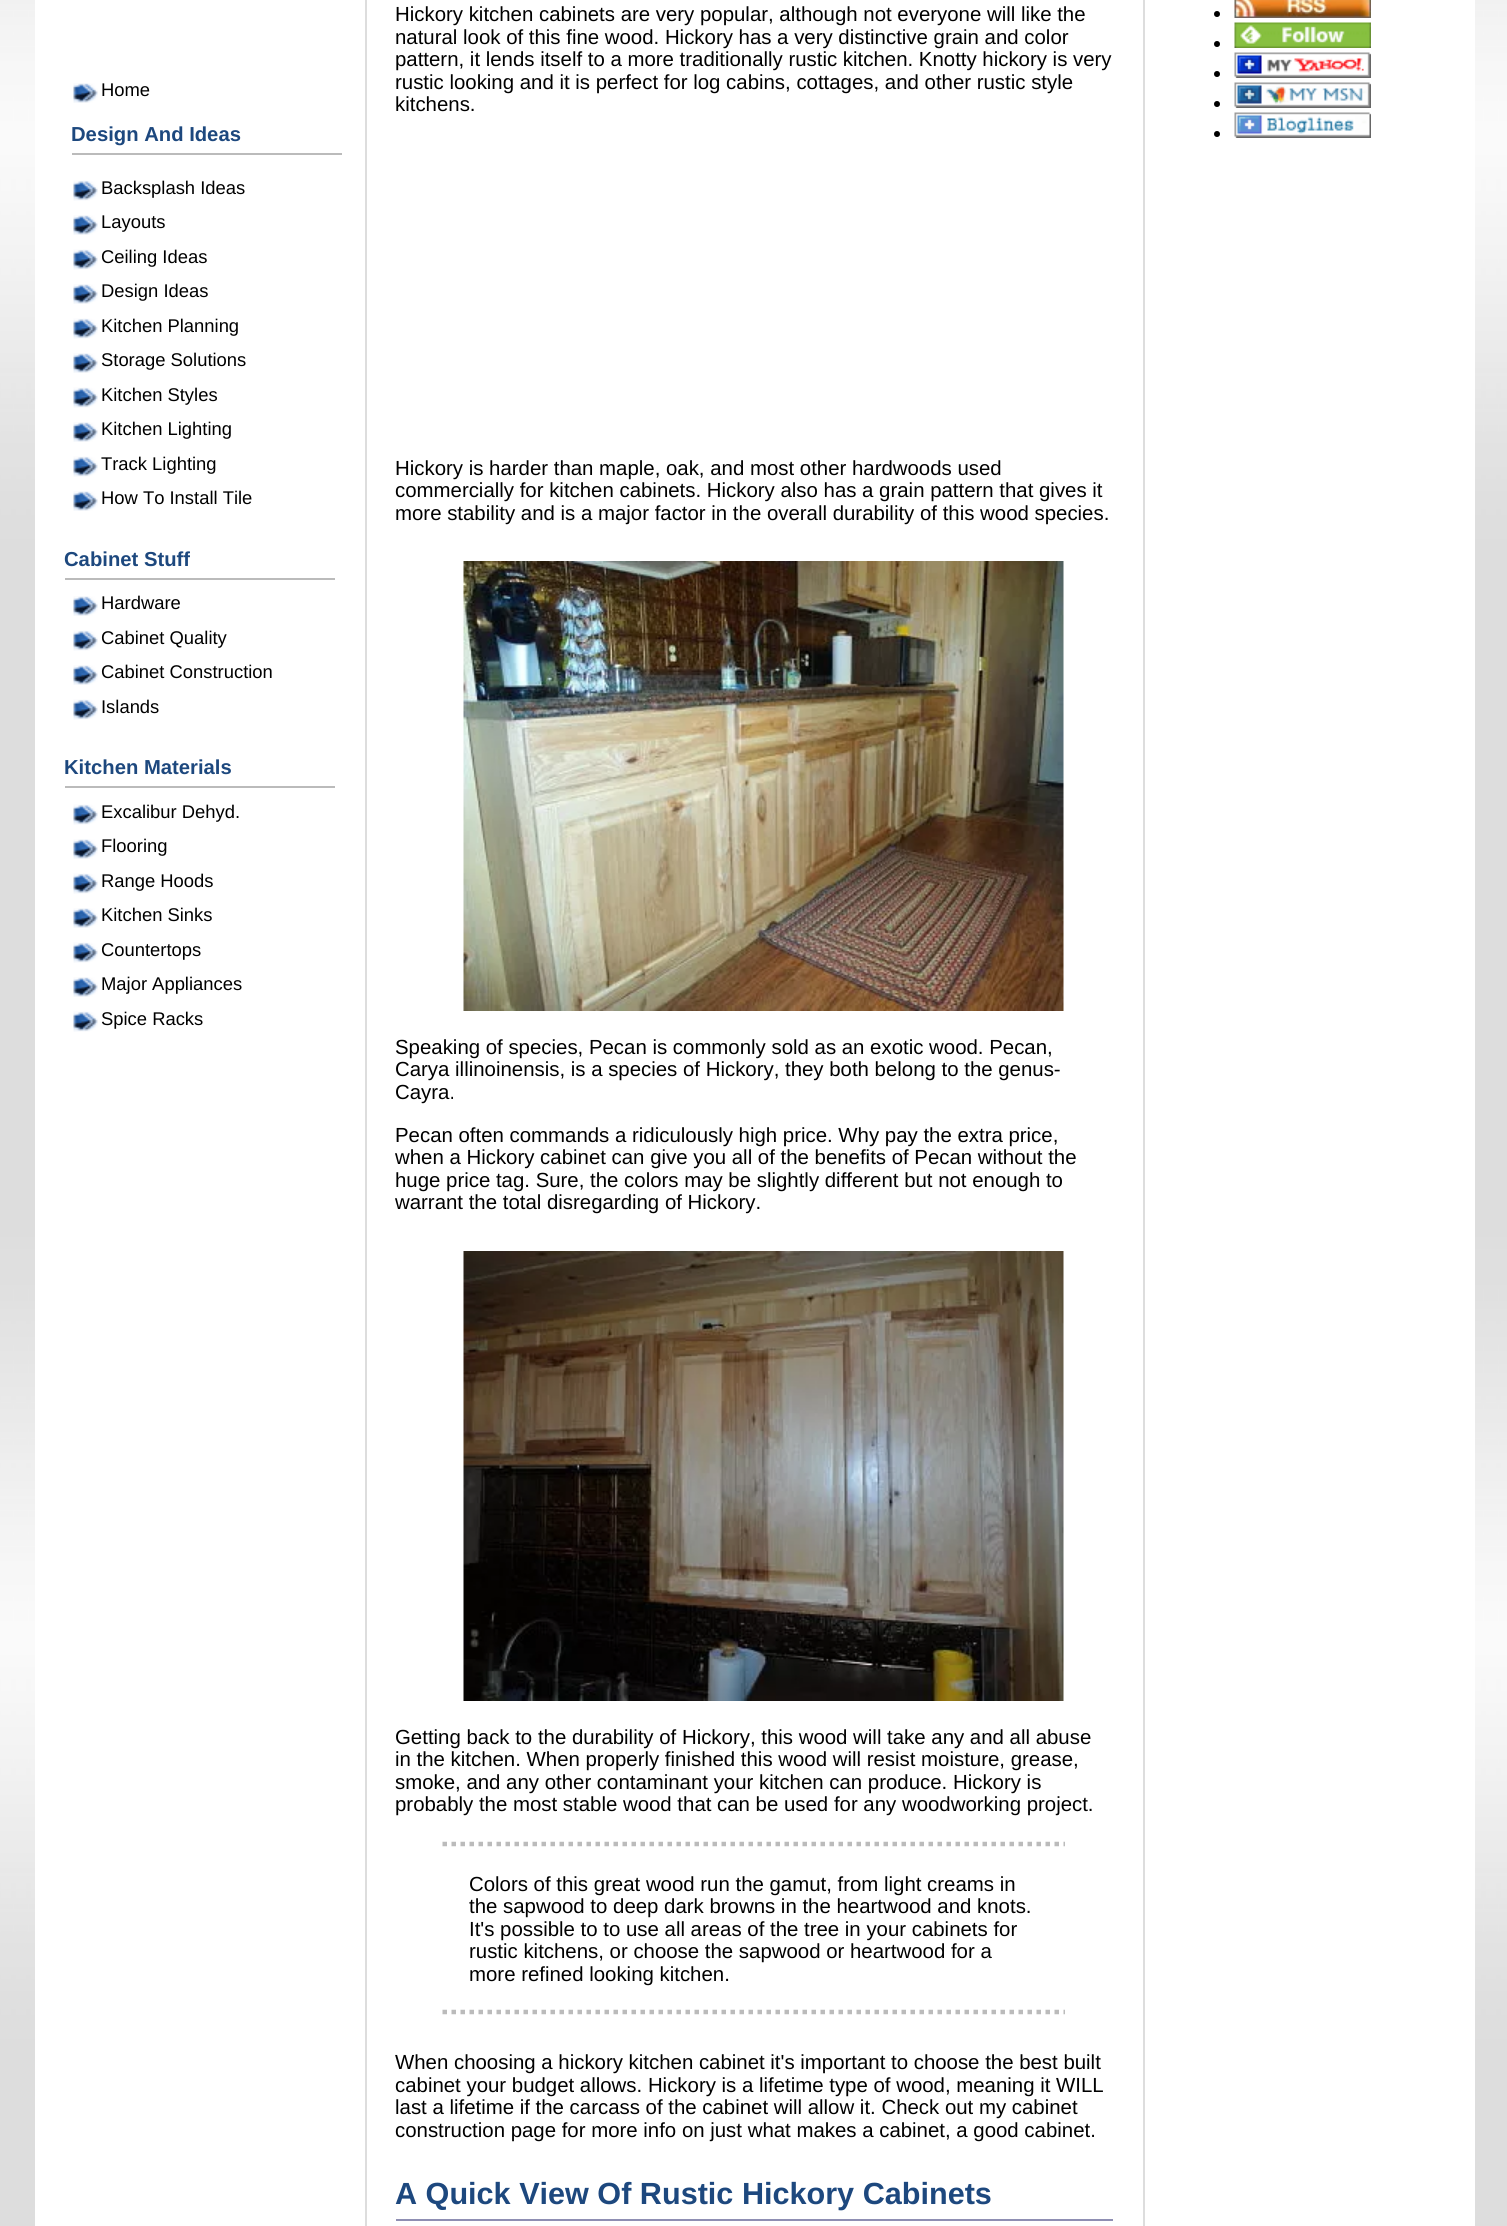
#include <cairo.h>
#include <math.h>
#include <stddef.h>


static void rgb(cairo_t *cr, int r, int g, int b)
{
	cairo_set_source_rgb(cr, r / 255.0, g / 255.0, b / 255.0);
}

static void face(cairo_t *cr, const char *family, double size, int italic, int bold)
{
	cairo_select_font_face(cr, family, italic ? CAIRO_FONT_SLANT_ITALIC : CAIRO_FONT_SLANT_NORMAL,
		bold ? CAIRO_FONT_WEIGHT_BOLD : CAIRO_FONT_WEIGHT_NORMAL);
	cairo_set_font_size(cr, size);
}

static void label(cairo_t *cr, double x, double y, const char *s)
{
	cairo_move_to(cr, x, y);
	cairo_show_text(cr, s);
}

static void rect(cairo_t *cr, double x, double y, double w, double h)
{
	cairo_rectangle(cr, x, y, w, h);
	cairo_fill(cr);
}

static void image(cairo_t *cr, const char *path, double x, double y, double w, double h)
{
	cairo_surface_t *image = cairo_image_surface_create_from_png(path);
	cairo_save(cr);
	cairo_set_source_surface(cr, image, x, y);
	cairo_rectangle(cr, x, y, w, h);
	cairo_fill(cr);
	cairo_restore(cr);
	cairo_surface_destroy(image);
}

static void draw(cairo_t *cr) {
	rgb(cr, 255, 255, 255);
	cairo_paint(cr);
	image(cr, "image0.png", 0, 0, 1507, 2226);
	rgb(cr, 255, 255, 255);
	rect(cr, 35, 0, 1440, 2226);
	image(cr, "image1.png", 73, 83, 25, 20);
	face(cr, "Liberation Sans", 18.4, 0, 0);
	rgb(cr, 0, 0, 0);
	label(cr, 101, 96, "Home");
	rgb(cr, 187, 187, 187);
	rect(cr, 72, 153, 270, 2);
	face(cr, "Liberation Sans", 20.25, 0, 1);
	rgb(cr, 29, 72, 126);
	label(cr, 71, 141, "Design And Ideas");
	image(cr, "image2.png", 73, 180, 25, 21);
	face(cr, "Liberation Sans", 18.4, 0, 0);
	rgb(cr, 0, 0, 0);
	label(cr, 101, 194, "Backsplash Ideas");
	image(cr, "image1.png", 73, 215, 25, 20);
	label(cr, 101, 228, "Layouts");
	image(cr, "image2.png", 73, 249, 25, 21);
	label(cr, 101, 263, "Ceiling Ideas");
	image(cr, "image1.png", 73, 284, 25, 20);
	label(cr, 101, 297, "Design Ideas");
	image(cr, "image2.png", 73, 318, 25, 21);
	label(cr, 101, 332, "Kitchen Planning");
	image(cr, "image1.png", 73, 353, 25, 20);
	label(cr, 101, 366, "Storage Solutions");
	image(cr, "image2.png", 73, 387, 25, 21);
	label(cr, 101, 401, "Kitchen Styles");
	image(cr, "image1.png", 73, 422, 25, 20);
	label(cr, 101, 435, "Kitchen Lighting");
	image(cr, "image2.png", 73, 456, 25, 21);
	label(cr, 101, 470, "Track Lighting");
	image(cr, "image1.png", 73, 491, 25, 20);
	label(cr, 101, 504, "How To Install Tile");
	rgb(cr, 187, 187, 187);
	rect(cr, 65, 578, 270, 2);
	face(cr, "Liberation Sans", 20.25, 0, 1);
	rgb(cr, 29, 72, 126);
	label(cr, 64, 566, "Cabinet Stuff");
	image(cr, "image1.png", 73, 596, 25, 20);
	face(cr, "Liberation Sans", 18.4, 0, 0);
	rgb(cr, 0, 0, 0);
	label(cr, 101, 609, "Hardware");
	image(cr, "image2.png", 73, 630, 25, 21);
	label(cr, 101, 644, "Cabinet Quality");
	image(cr, "image1.png", 73, 665, 25, 20);
	label(cr, 101, 678, "Cabinet Construction");
	image(cr, "image2.png", 73, 699, 25, 21);
	label(cr, 101, 713, "Islands");
	rgb(cr, 187, 187, 187);
	rect(cr, 65, 786, 270, 2);
	face(cr, "Liberation Sans", 20.25, 0, 1);
	rgb(cr, 29, 72, 126);
	label(cr, 64, 774, "Kitchen Materials");
	image(cr, "image2.png", 73, 804, 25, 21);
	face(cr, "Liberation Sans", 18.4, 0, 0);
	rgb(cr, 0, 0, 0);
	label(cr, 101, 818, "Excalibur Dehyd.");
	image(cr, "image1.png", 73, 839, 25, 20);
	label(cr, 101, 852, "Flooring");
	image(cr, "image2.png", 73, 873, 25, 21);
	label(cr, 101, 887, "Range Hoods");
	image(cr, "image1.png", 73, 908, 25, 20);
	label(cr, 101, 921, "Kitchen Sinks");
	image(cr, "image2.png", 73, 942, 25, 21);
	label(cr, 101, 956, "Countertops");
	image(cr, "image1.png", 73, 977, 25, 20);
	label(cr, 101, 990, "Major Appliances");
	image(cr, "image2.png", 73, 1011, 25, 21);
	label(cr, 101, 1025, "Spice Racks");
	rgb(cr, 221, 221, 221);
	rect(cr, 1143, 0, 2, 2226);
	rect(cr, 365, 0, 2, 2226);
	face(cr, "Liberation Sans", 20.4, 0, 0);
	rgb(cr, 0, 0, 0);
	label(cr, 395, 21, "Hickory kitchen cabinets are very popular, although not everyone will like the");
	label(cr, 395, 44, "natural look of this fine wood. Hickory has a very distinctive grain and color");
	label(cr, 395, 66, "pattern, it lends itself to a more traditionally rustic kitchen. Knotty hickory is very");
	label(cr, 395, 89, "rustic looking and it is perfect for log cabins, cottages, and other rustic style");
	label(cr, 395, 111, "kitchens.");
	label(cr, 395, 475, "Hickory is harder than maple, oak, and most other hardwoods used");
	label(cr, 395, 497, "commercially for kitchen cabinets. Hickory also has a grain pattern that gives it");
	label(cr, 395, 520, "more stability and is a major factor in the overall durability of this wood species.");
	image(cr, "image3.png", 463, 561, 601, 450);
	label(cr, 395, 1054, "Speaking of species, Pecan is commonly sold as an exotic wood. Pecan,");
	label(cr, 395, 1076, "Carya illinoinensis, is a species of Hickory, they both belong to the genus-");
	label(cr, 395, 1099, "Cayra.");
	label(cr, 395, 1142, "Pecan often commands a ridiculously high price. Why pay the extra price,");
	label(cr, 395, 1164, "when a Hickory cabinet can give you all of the benefits of Pecan without the");
	label(cr, 395, 1187, "huge price tag. Sure, the colors may be slightly different but not enough to");
	label(cr, 395, 1209, "warrant the total disregarding of Hickory.");
	image(cr, "image4.png", 463, 1251, 601, 450);
	label(cr, 395, 1744, "Getting back to the durability of Hickory, this wood will take any and all abuse");
	label(cr, 395, 1766, "in the kitchen. When properly finished this wood will resist moisture, grease,");
	label(cr, 395, 1789, "smoke, and any other contaminant your kitchen can produce. Hickory is");
	label(cr, 395, 1811, "probably the most stable wood that can be used for any woodworking project.");
	cairo_new_path(cr);
	cairo_move_to(cr, 442.5, 1844);
	cairo_line_to(cr, 1065, 1844);
	rgb(cr, 187, 187, 187);
	cairo_set_line_width(cr, 4.5);
	cairo_set_dash(cr, (double[]){4.5, 4.5}, 2, 0);
	cairo_stroke(cr);
	cairo_new_path(cr);
	cairo_move_to(cr, 442.5, 2012);
	cairo_line_to(cr, 1065, 2012);
	cairo_stroke(cr);
	rgb(cr, 0, 0, 0);
	label(cr, 469, 1891, "Colors of this great wood run the gamut, from light creams in");
	label(cr, 469, 1913, "the sapwood to deep dark browns in the heartwood and knots.");
	label(cr, 469, 1936, "It's possible to to use all areas of the tree in your cabinets for");
	label(cr, 469, 1958, "rustic kitchens, or choose the sapwood or heartwood for a");
	label(cr, 469, 1981, "more refined looking kitchen.");
	label(cr, 395, 2069, "When choosing a hickory kitchen cabinet it's important to choose the best built");
	label(cr, 395, 2092, "cabinet your budget allows. Hickory is a lifetime type of wood, meaning it WILL");
	label(cr, 395, 2114, "last a lifetime if the carcass of the cabinet will allow it. Check out my cabinet");
	label(cr, 395, 2137, "construction page for more info on just what makes a cabinet, a good cabinet.");
	rgb(cr, 143, 143, 179);
	rect(cr, 396, 2219, 717, 2);
	face(cr, "Liberation Sans", 30.6, 0, 1);
	rgb(cr, 29, 72, 126);
	label(cr, 395, 2204, "A Quick View Of Rustic Hickory Cabinets");
	rgb(cr, 0, 0, 0);
	cairo_new_path(cr);
	cairo_arc(cr, 1217, 14, 3, 0, 2 * M_PI);
	cairo_fill(cr);
	image(cr, "image5.png", 1234, 0, 137, 18);
	cairo_arc(cr, 1217, 44, 3, 0, 2 * M_PI);
	cairo_fill(cr);
	image(cr, "image6.png", 1234, 22, 137, 26);
	cairo_arc(cr, 1217, 74, 3, 0, 2 * M_PI);
	cairo_fill(cr);
	image(cr, "image7.png", 1234, 52, 137, 26);
	cairo_arc(cr, 1217, 104, 3, 0, 2 * M_PI);
	cairo_fill(cr);
	image(cr, "image8.png", 1234, 82, 137, 26);
	cairo_arc(cr, 1217, 134, 3, 0, 2 * M_PI);
	cairo_fill(cr);
	image(cr, "image9.png", 1234, 112, 137, 26);
}

int main(void) {
	cairo_surface_t *surface = cairo_image_surface_create(CAIRO_FORMAT_RGB24, 1507, 2226);
	cairo_t *cr = cairo_create(surface);
	cairo_font_options_t *options = cairo_font_options_create();
	cairo_font_options_set_hint_metrics(options, CAIRO_HINT_METRICS_OFF);
	cairo_font_options_set_hint_style(options, CAIRO_HINT_STYLE_NONE);
	cairo_set_font_options(cr, options);
	cairo_set_miter_limit(cr, 4);
	draw(cr);
	cairo_surface_write_to_png(surface, "render.png");
	cairo_font_options_destroy(options);
	cairo_destroy(cr);
	cairo_surface_destroy(surface);
	return 0;
}
